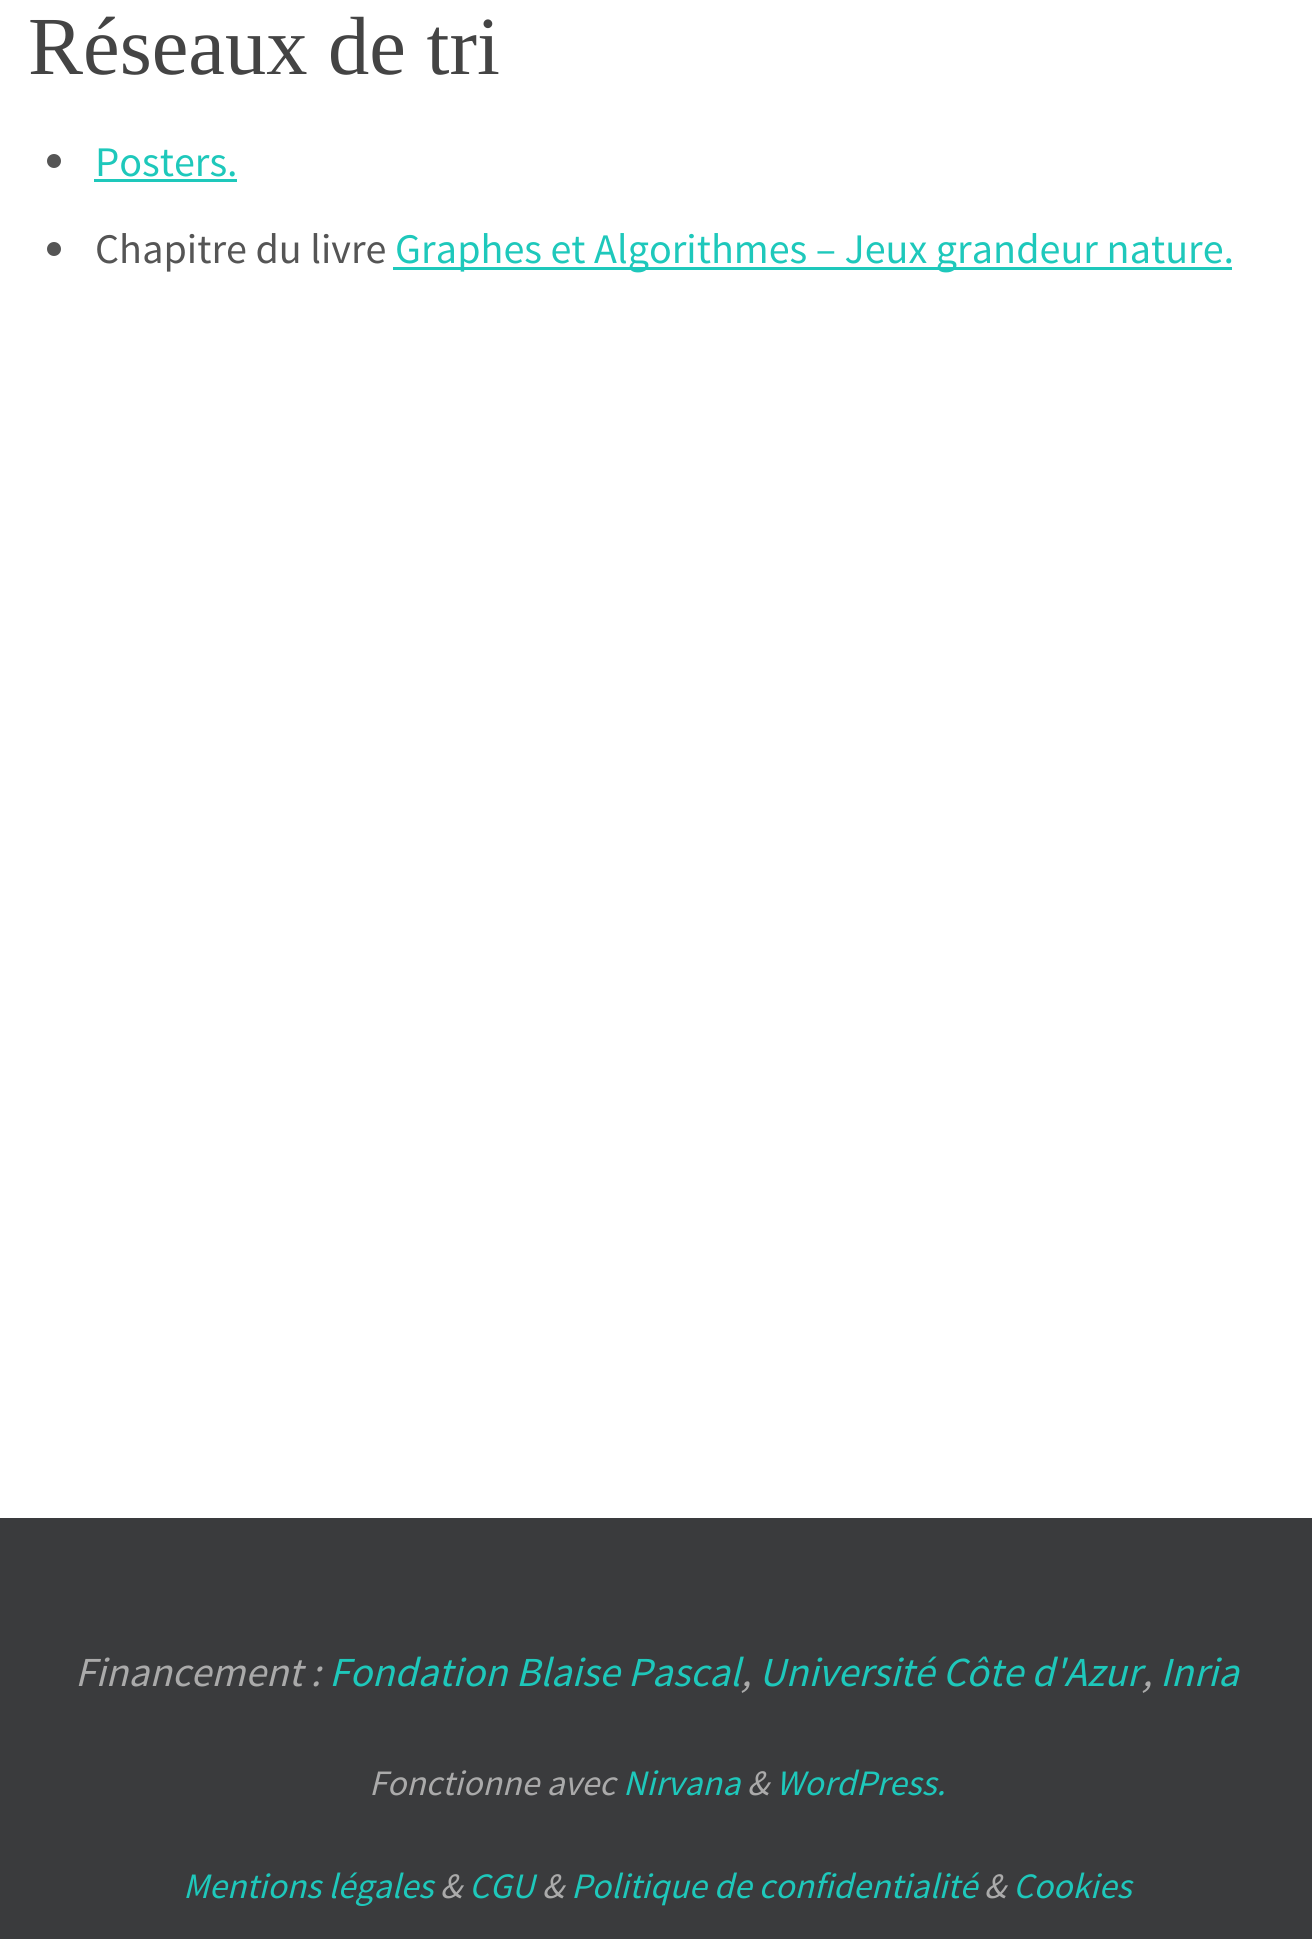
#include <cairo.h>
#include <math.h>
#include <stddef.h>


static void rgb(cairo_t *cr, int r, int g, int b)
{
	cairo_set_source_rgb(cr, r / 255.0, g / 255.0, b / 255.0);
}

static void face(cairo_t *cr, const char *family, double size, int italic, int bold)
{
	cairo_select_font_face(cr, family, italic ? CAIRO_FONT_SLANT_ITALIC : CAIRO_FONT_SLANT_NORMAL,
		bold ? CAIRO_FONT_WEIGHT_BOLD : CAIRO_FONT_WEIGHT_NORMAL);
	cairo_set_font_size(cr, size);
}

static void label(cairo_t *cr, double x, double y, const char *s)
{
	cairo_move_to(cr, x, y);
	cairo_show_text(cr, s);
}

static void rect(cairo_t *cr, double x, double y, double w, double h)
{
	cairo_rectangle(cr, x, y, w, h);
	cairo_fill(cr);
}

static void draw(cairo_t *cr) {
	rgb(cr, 255, 255, 255);
	cairo_paint(cr);
	face(cr, "Liberation Serif", 82.5, 0, 0);
	rgb(cr, 68, 68, 68);
	label(cr, 28, 74, "Réseaux de tri");
	rgb(cr, 85, 85, 85);
	cairo_new_path(cr);
	cairo_arc(cr, 54, 161, 7, 0, 2 * M_PI);
	cairo_fill(cr);
	face(cr, "Source Sans Pro", 42.1, 0, 0);
	rgb(cr, 30, 200, 187);
	label(cr, 95, 176, "Posters.");
	rect(cr, 94, 179, 143, 3);
	rgb(cr, 85, 85, 85);
	cairo_new_path(cr);
	cairo_arc(cr, 54, 249, 7, 0, 2 * M_PI);
	cairo_fill(cr);
	label(cr, 95, 263, "Chapitre du livre");
	rgb(cr, 30, 200, 187);
	rect(cr, 393, 267, 839, 3);
	label(cr, 395, 263, "Graphes et Algorithmes – Jeux grandeur nature.");
	rgb(cr, 58, 59, 61);
	rect(cr, 0, 1518, 1312, 421);
	face(cr, "Source Sans Pro", 41.25, 1, 0);
	rgb(cr, 170, 170, 170);
	label(cr, 75, 1686, "Financement :");
	rgb(cr, 30, 200, 187);
	label(cr, 329, 1686, "Fondation Blaise Pascal");
	rgb(cr, 170, 170, 170);
	label(cr, 741, 1686, ",");
	rgb(cr, 30, 200, 187);
	label(cr, 759, 1686, "Université Côte d'Azur");
	label(cr, 1160, 1686, "Inria");
	rgb(cr, 170, 170, 170);
	label(cr, 1142, 1686, ",");
	face(cr, "Source Sans Pro", 35.75, 1, 0);
	label(cr, 369, 1795, "Fonctionne avec");
	rgb(cr, 30, 200, 187);
	label(cr, 623, 1795, "Nirvana");
	rgb(cr, 170, 170, 170);
	label(cr, 747, 1795, "&");
	rgb(cr, 30, 200, 187);
	label(cr, 776, 1795, "WordPress.");
	label(cr, 183, 1898, "Mentions légales");
	rgb(cr, 170, 170, 170);
	label(cr, 440, 1898, "&");
	rgb(cr, 30, 200, 187);
	label(cr, 469, 1898, "CGU");
	rgb(cr, 170, 170, 170);
	label(cr, 542, 1898, "&");
	rgb(cr, 30, 200, 187);
	label(cr, 571, 1898, "Politique de confidentialité");
	rgb(cr, 170, 170, 170);
	label(cr, 984, 1898, "&");
	rgb(cr, 30, 200, 187);
	label(cr, 1013, 1898, "Cookies");
}

int main(void) {
	cairo_surface_t *surface = cairo_image_surface_create(CAIRO_FORMAT_RGB24, 1312, 1939);
	cairo_t *cr = cairo_create(surface);
	cairo_font_options_t *options = cairo_font_options_create();
	cairo_font_options_set_hint_metrics(options, CAIRO_HINT_METRICS_OFF);
	cairo_font_options_set_hint_style(options, CAIRO_HINT_STYLE_NONE);
	cairo_set_font_options(cr, options);
	cairo_set_miter_limit(cr, 4);
	draw(cr);
	cairo_surface_write_to_png(surface, "render.png");
	cairo_font_options_destroy(options);
	cairo_destroy(cr);
	cairo_surface_destroy(surface);
	return 0;
}
